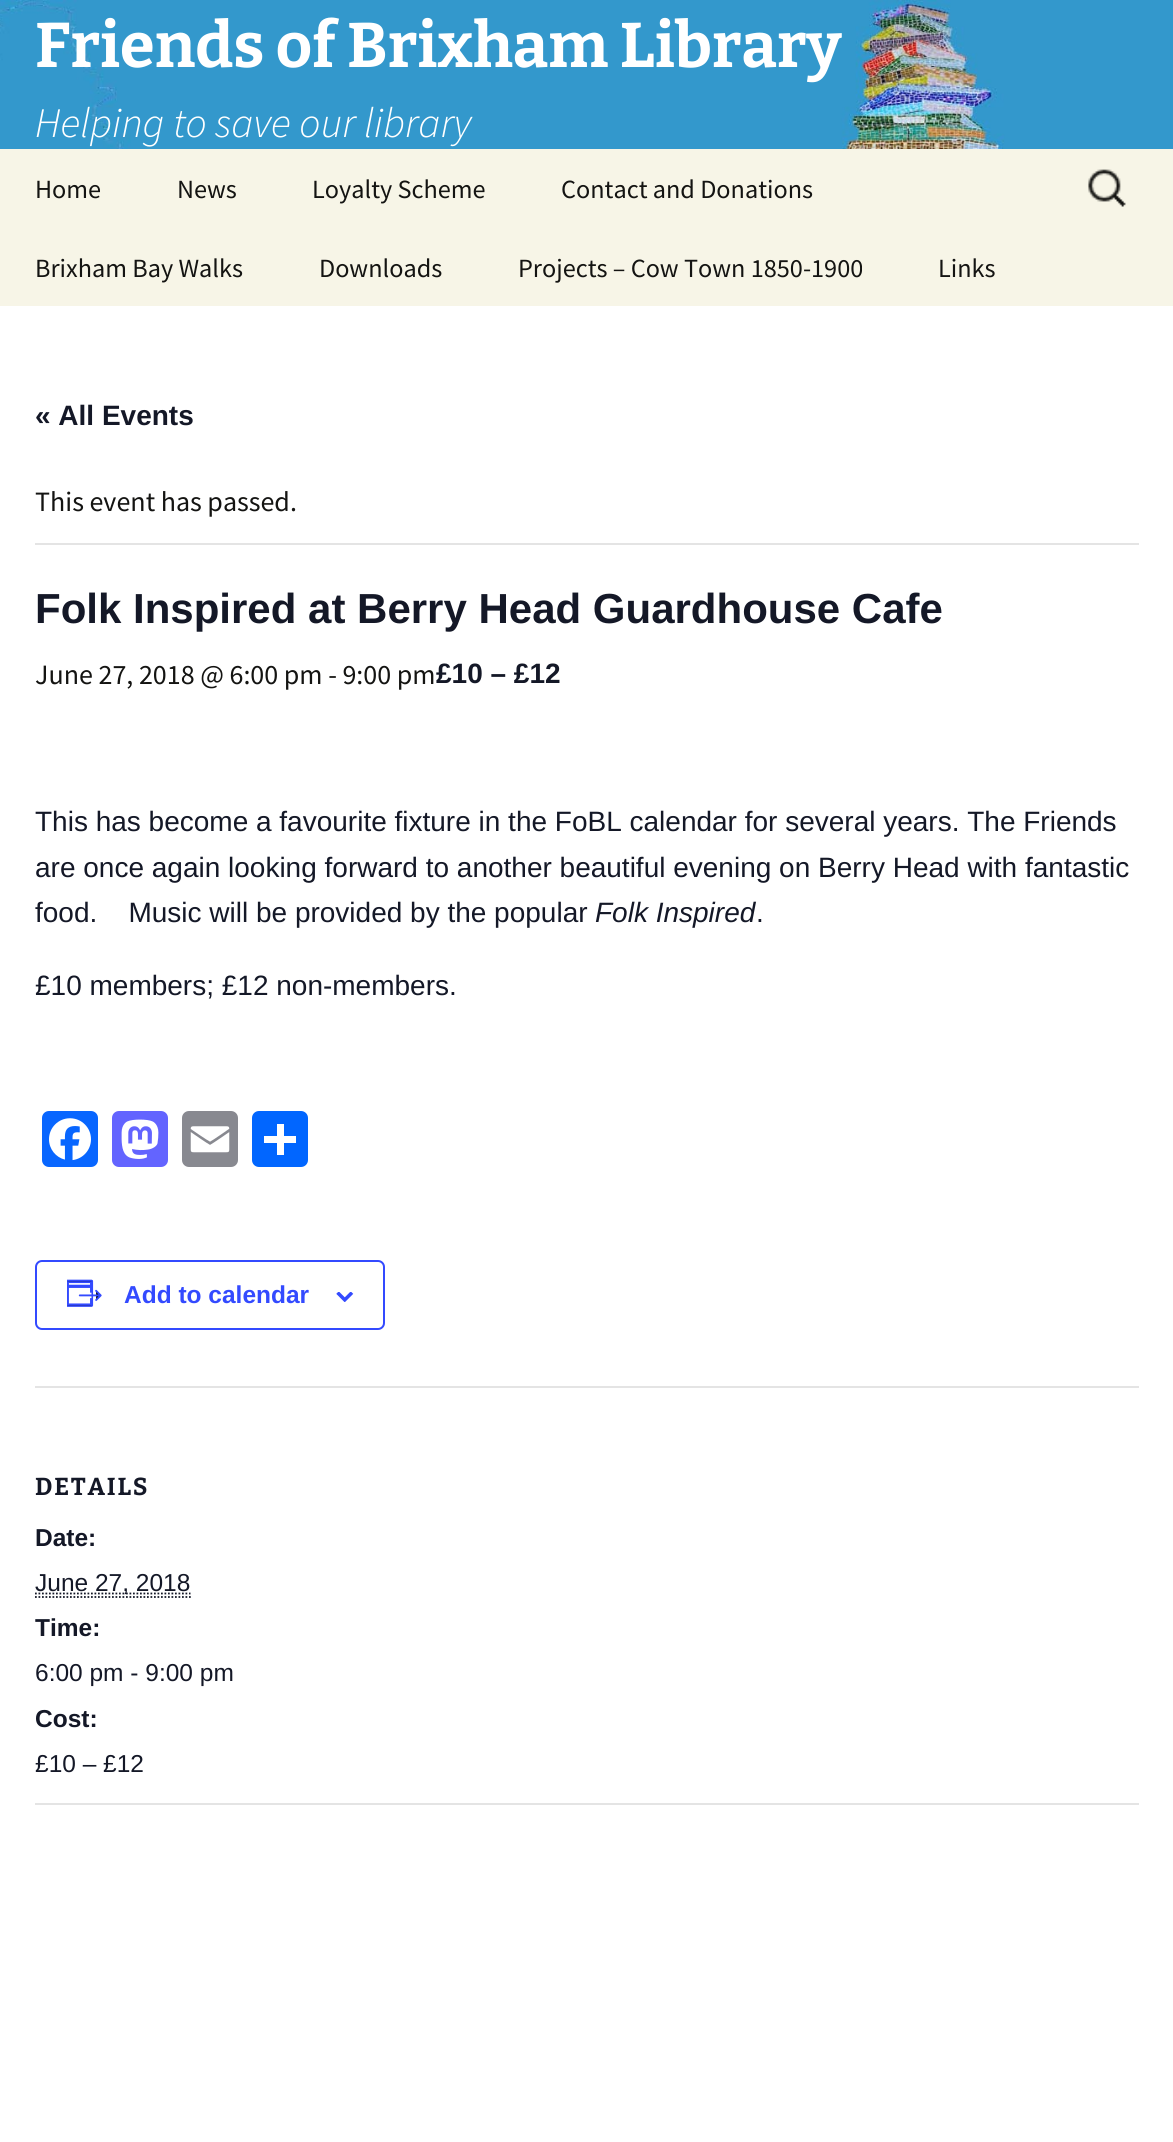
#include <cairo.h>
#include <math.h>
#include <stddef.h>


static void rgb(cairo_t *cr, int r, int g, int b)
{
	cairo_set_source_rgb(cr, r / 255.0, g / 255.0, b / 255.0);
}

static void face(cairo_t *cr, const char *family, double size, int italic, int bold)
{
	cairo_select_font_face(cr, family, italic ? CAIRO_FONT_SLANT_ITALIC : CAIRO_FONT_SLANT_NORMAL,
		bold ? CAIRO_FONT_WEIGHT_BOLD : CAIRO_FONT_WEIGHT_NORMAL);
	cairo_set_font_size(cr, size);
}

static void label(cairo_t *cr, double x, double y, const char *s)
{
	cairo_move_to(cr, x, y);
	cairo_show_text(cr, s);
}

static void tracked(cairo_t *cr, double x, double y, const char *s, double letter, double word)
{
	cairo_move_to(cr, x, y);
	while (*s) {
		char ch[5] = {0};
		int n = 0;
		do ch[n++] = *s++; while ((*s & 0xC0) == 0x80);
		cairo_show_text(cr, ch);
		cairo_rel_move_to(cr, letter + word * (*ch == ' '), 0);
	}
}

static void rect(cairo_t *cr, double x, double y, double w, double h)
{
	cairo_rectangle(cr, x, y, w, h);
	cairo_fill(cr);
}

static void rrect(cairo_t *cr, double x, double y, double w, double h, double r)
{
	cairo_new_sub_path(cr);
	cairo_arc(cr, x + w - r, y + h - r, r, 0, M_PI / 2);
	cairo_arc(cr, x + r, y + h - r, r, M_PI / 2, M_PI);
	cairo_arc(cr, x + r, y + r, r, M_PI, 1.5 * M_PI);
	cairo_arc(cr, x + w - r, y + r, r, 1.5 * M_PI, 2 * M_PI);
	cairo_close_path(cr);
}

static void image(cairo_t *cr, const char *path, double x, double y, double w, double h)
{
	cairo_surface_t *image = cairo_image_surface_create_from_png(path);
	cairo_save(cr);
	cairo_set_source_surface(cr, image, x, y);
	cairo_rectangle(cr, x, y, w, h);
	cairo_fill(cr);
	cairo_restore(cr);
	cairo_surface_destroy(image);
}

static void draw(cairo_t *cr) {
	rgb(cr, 255, 255, 255);
	cairo_paint(cr);
	image(cr, "image0.png", 0, 0, 1173, 149);
	face(cr, "Bitter Thin", 63, 0, 0);
	rgb(cr, 255, 255, 255);
	label(cr, 35, 67, "Friends of Brixham Library");
	face(cr, "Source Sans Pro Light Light", 42, 1, 0);
	label(cr, 35, 137, "Helping to save our library");
	rgb(cr, 247, 245, 231);
	rect(cr, 0, 149, 1173, 157);
	face(cr, "Source Sans Pro", 26.25, 0, 0);
	rgb(cr, 20, 20, 18);
	label(cr, 35, 198, "Home");
	label(cr, 177, 198, "News");
	label(cr, 312, 198, "Loyalty Scheme");
	label(cr, 561, 198, "Contact and Donations");
	label(cr, 35, 277, "Brixham Bay Walks");
	label(cr, 319, 277, "Downloads");
	label(cr, 518, 277, "Projects – Cow Town 1850-1900");
	label(cr, 938, 277, "Links");
	image(cr, "image1.png", 1088, 169, 38, 38);
	face(cr, "Liberation Sans", 28, 0, 1);
	rgb(cr, 20, 24, 39);
	label(cr, 35, 425, "« All Events");
	rgb(cr, 228, 228, 228);
	rect(cr, 35, 543, 1104, 2);
	face(cr, "Source Sans Pro", 28, 0, 0);
	rgb(cr, 20, 20, 18);
	label(cr, 35, 511, "This event has passed.");
	face(cr, "Liberation Sans", 42, 0, 1);
	rgb(cr, 20, 24, 39);
	label(cr, 35, 623, "Folk Inspired at Berry Head Guardhouse Cafe");
	face(cr, "Source Sans Pro", 28, 0, 0);
	rgb(cr, 20, 20, 18);
	label(cr, 35, 684, "June 27, 2018 @ 6:00 pm - 9:00 pm");
	face(cr, "Liberation Sans", 28, 0, 1);
	rgb(cr, 20, 24, 39);
	label(cr, 436, 683, "£10 – £12");
	face(cr, "Liberation Sans", 28, 0, 0);
	label(cr, 35, 831, "This has become a favourite fixture in the FoBL calendar for several years. The Friends");
	label(cr, 35, 877, "are once again looking forward to another beautiful evening on Berry Head with fantastic");
	label(cr, 35, 922, "food.    Music will be provided by the popular");
	face(cr, "Liberation Sans", 28, 1, 0);
	label(cr, 595, 922, "Folk Inspired");
	face(cr, "Liberation Sans", 28, 0, 0);
	label(cr, 756, 922, ".");
	label(cr, 35, 995, "£10 members; £12 non-members.");
	rgb(cr, 8, 102, 255);
	rrect(cr, 42, 1111, 56, 56, 7);
	cairo_fill(cr);
	image(cr, "image2.png", 49, 1118, 42, 43);
	rgb(cr, 99, 100, 255);
	rrect(cr, 112, 1111, 56, 56, 7);
	cairo_fill(cr);
	image(cr, "image3.png", 121, 1119, 38, 40);
	rgb(cr, 136, 137, 144);
	rrect(cr, 182, 1111, 56, 56, 7);
	cairo_fill(cr);
	image(cr, "image4.png", 190, 1126, 40, 27);
	rgb(cr, 1, 102, 255);
	rrect(cr, 252, 1111, 56, 56, 7);
	cairo_fill(cr);
	rgb(cr, 255, 255, 255);
	rect(cr, 277, 1124, 7, 31);
	rect(cr, 264, 1136, 32, 7);
	rrect(cr, 36, 1261, 348, 68, 6);
	rgb(cr, 51, 74, 255);
	cairo_stroke(cr);
	image(cr, "image5.png", 67, 1279, 35, 28);
	face(cr, "Liberation Sans", 24.5, 0, 1);
	label(cr, 124, 1303, "Add to calendar");
	image(cr, "image6.png", 336, 1292, 18, 10);
	rgb(cr, 228, 228, 228);
	rect(cr, 35, 1386, 1104, 2);
	face(cr, "Bitter Thin", 24.5, 0, 0);
	rgb(cr, 20, 24, 39);
	tracked(cr, 35, 1495, "DETAILS", 1.75, 0);
	face(cr, "Liberation Sans", 24.5, 0, 1);
	label(cr, 35, 1546, "Date:");
	cairo_new_path(cr);
	cairo_move_to(cr, 35, 1593.5);
	cairo_line_to(cr, 190.5, 1593.5);
	cairo_set_line_width(cr, 1.8);
	cairo_set_dash(cr, (double[]){1.75, 1.75}, 2, 0);
	cairo_stroke(cr);
	face(cr, "Liberation Sans", 24.5, 0, 0);
	label(cr, 35, 1591, "June 27, 2018");
	cairo_new_path(cr);
	cairo_move_to(cr, 35, 1597);
	cairo_line_to(cr, 191, 1597);
	cairo_stroke(cr);
	face(cr, "Liberation Sans", 24.5, 0, 1);
	label(cr, 35, 1636, "Time:");
	face(cr, "Liberation Sans", 24.5, 0, 0);
	label(cr, 35, 1681, "6:00 pm - 9:00 pm");
	face(cr, "Liberation Sans", 24.5, 0, 1);
	label(cr, 35, 1727, "Cost:");
	face(cr, "Liberation Sans", 24.5, 0, 0);
	label(cr, 35, 1772, "£10 – £12");
	rgb(cr, 228, 228, 228);
	rect(cr, 35, 1803, 1104, 2);
}

int main(void) {
	cairo_surface_t *surface = cairo_image_surface_create(CAIRO_FORMAT_RGB24, 1173, 2142);
	cairo_t *cr = cairo_create(surface);
	cairo_font_options_t *options = cairo_font_options_create();
	cairo_font_options_set_hint_metrics(options, CAIRO_HINT_METRICS_OFF);
	cairo_font_options_set_hint_style(options, CAIRO_HINT_STYLE_NONE);
	cairo_set_font_options(cr, options);
	cairo_set_miter_limit(cr, 4);
	draw(cr);
	cairo_surface_write_to_png(surface, "render.png");
	cairo_font_options_destroy(options);
	cairo_destroy(cr);
	cairo_surface_destroy(surface);
	return 0;
}
